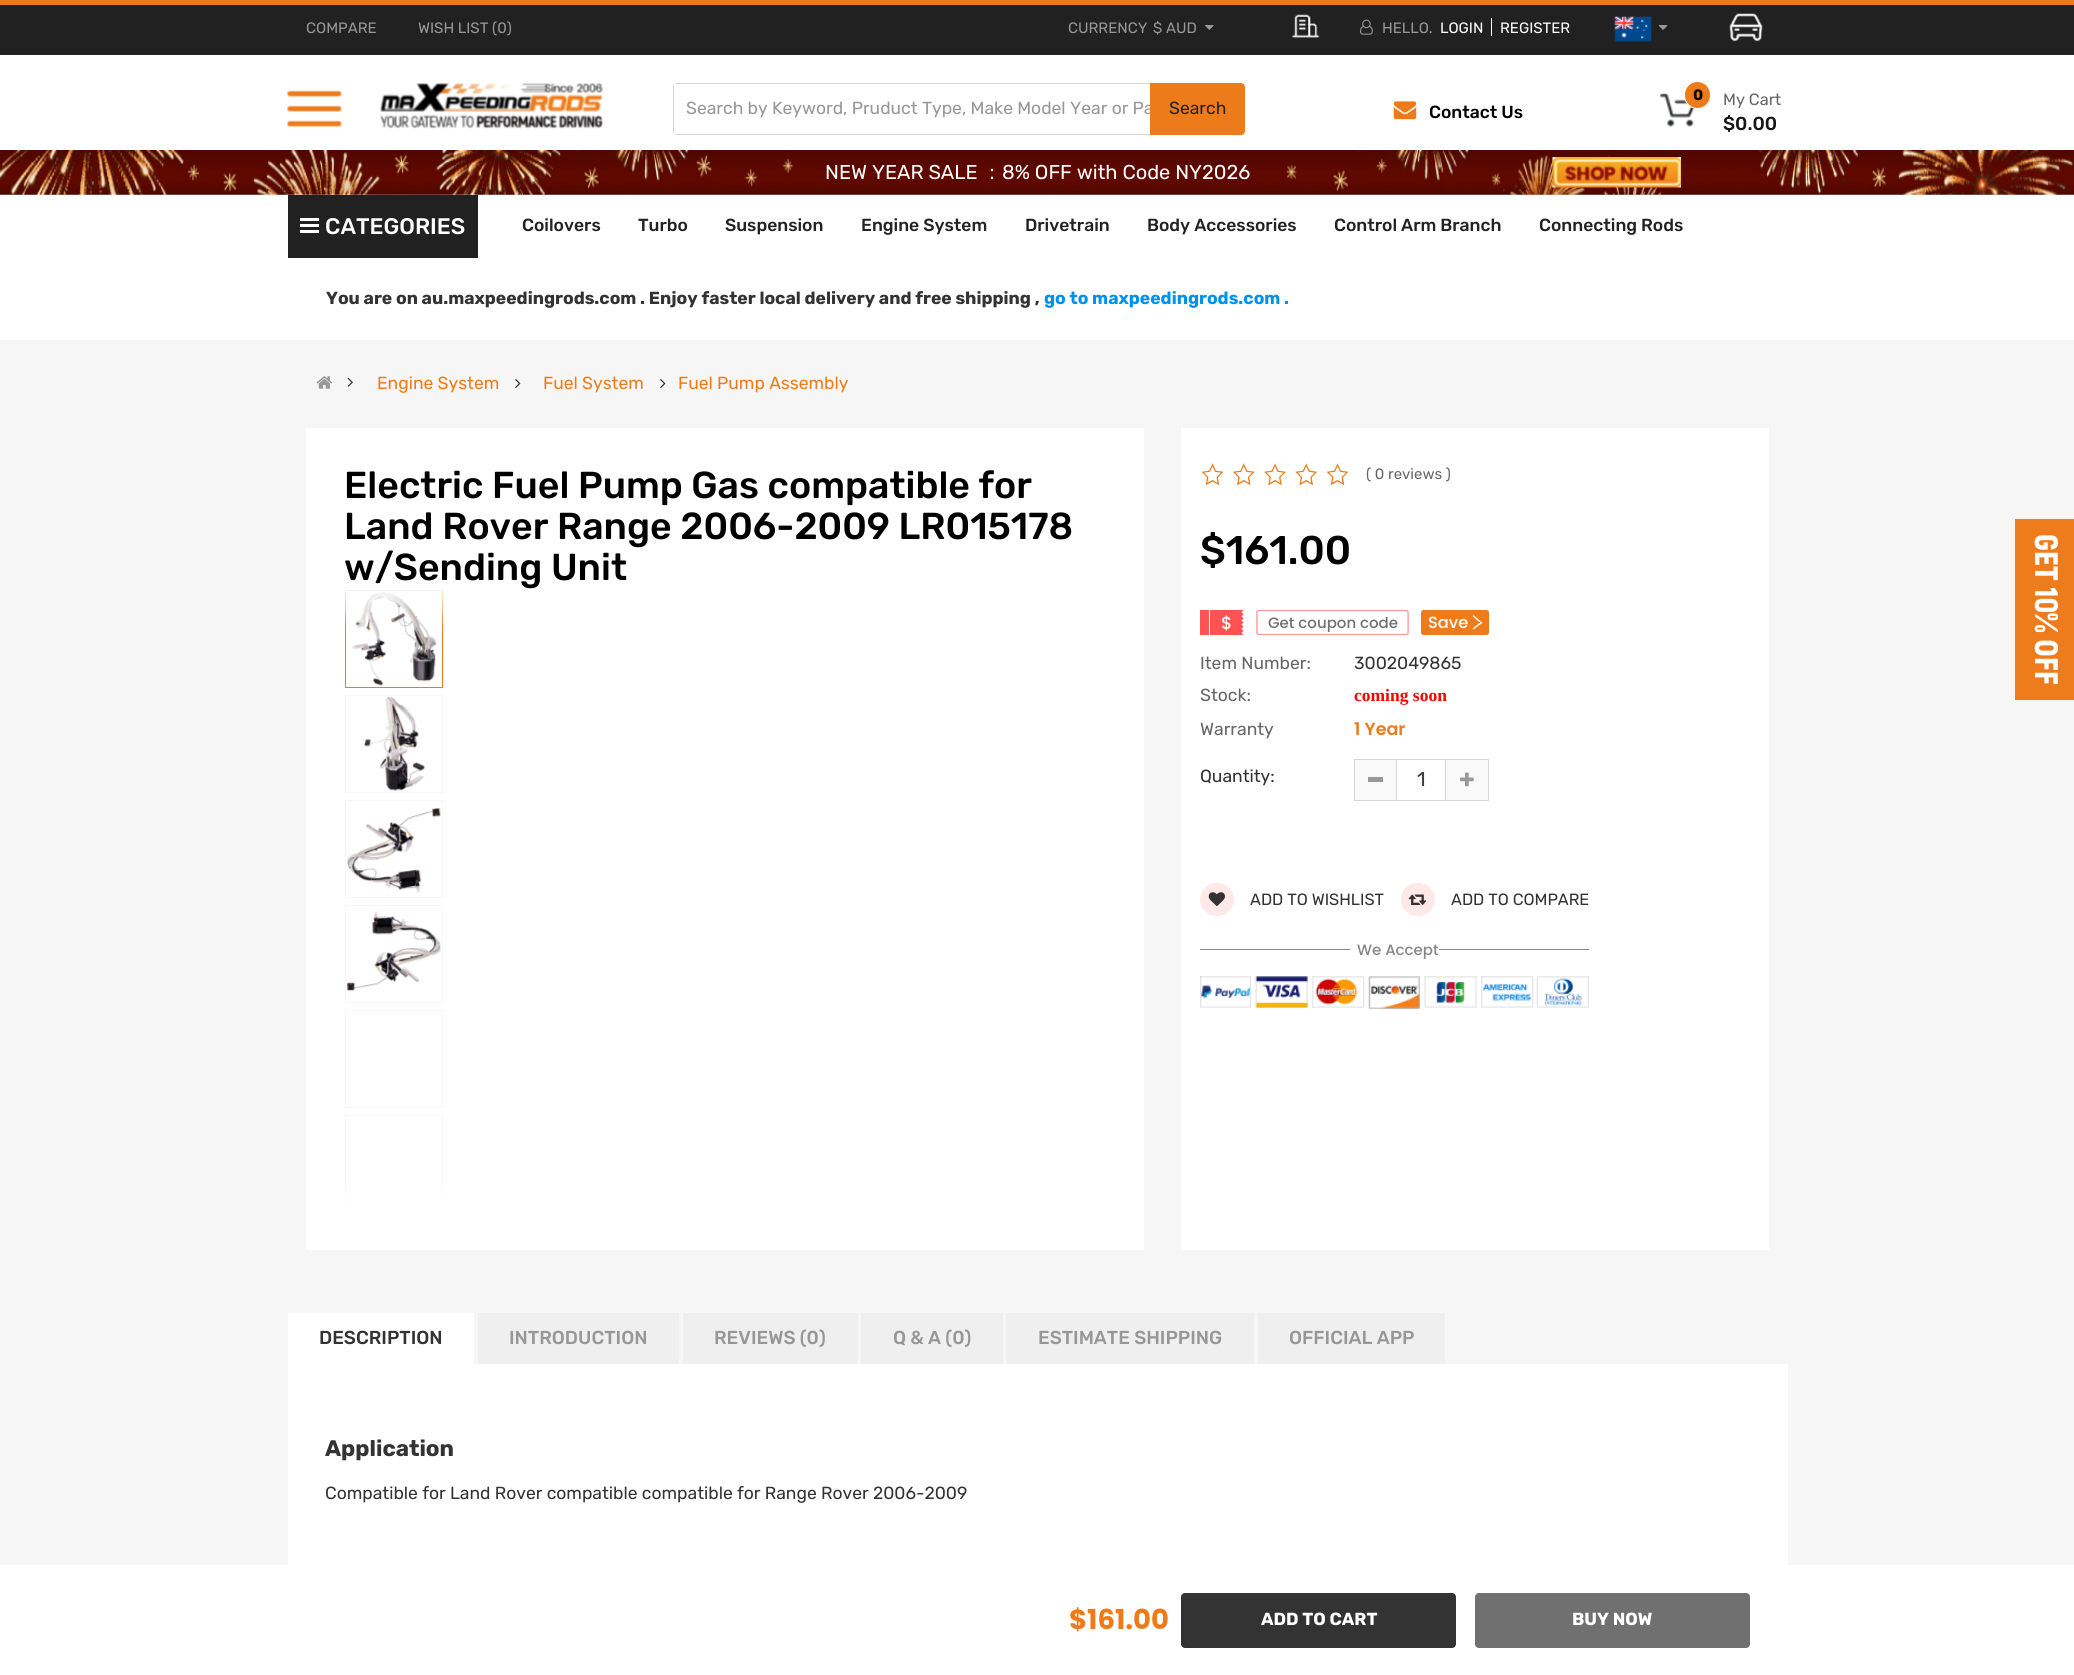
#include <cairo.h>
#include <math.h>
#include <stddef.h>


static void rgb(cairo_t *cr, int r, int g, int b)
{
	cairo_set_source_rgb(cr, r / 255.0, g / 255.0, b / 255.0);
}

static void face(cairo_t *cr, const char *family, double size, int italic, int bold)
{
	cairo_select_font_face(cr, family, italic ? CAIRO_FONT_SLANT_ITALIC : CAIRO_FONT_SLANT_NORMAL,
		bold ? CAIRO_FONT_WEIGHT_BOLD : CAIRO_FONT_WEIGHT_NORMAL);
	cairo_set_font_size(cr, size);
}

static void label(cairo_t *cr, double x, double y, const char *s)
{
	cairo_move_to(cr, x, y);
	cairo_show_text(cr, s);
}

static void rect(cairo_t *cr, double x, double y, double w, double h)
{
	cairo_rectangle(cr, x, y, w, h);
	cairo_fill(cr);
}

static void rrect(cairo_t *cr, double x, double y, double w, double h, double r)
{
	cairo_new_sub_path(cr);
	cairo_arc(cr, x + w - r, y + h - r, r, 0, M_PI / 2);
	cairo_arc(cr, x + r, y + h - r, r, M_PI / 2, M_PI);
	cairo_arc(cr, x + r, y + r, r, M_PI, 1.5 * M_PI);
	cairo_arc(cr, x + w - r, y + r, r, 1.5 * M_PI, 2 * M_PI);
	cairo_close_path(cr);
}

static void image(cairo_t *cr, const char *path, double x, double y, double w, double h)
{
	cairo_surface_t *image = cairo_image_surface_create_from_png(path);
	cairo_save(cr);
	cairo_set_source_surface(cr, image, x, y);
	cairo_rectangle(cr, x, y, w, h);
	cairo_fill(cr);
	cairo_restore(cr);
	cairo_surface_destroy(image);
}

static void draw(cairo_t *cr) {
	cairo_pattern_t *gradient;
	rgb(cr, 246, 246, 246);
	cairo_paint(cr);
	rgb(cr, 238, 123, 26);
	rect(cr, 0, 0, 2074, 5);
	rgb(cr, 255, 255, 255);
	rect(cr, 0, 55, 2074, 285);
	rgb(cr, 33, 33, 33);
	rect(cr, 0, 5, 2074, 50);
	face(cr, "Rubik", 15, 0, 0);
	rgb(cr, 151, 151, 151);
	label(cr, 306, 33, "COMPARE");
	label(cr, 418, 33, "WISH LIST (0)");
	label(cr, 1068, 33, "CURRENCY");
	label(cr, 1153, 33, "$ AUD");
	image(cr, "image0.png", 1205, 25, 9, 5);
	image(cr, "image1.png", 1292, 14, 28, 24);
	image(cr, "image2.png", 1360, 19, 13, 16);
	label(cr, 1382, 33, "HELLO.");
	rgb(cr, 255, 255, 255);
	label(cr, 1440, 33, "LOGIN");
	rect(cr, 1491, 18, 1, 18);
	label(cr, 1500, 33, "REGISTER");
	image(cr, "image3.png", 1614, 16, 38, 26);
	image(cr, "image4.png", 1658, 25, 10, 5);
	image(cr, "image5.png", 1729, 13, 34, 29);
	image(cr, "image6.png", 287, 90, 55, 37);
	image(cr, "image7.png", 379, 83, 225, 46);
	rrect(cr, 673.5, 83.5, 570, 51, 3.5);
	rgb(cr, 215, 215, 215);
	cairo_set_line_width(cr, 1);
	cairo_stroke(cr);
	rgb(cr, 255, 255, 255);
	rect(cr, 674, 84, 3, 50);
	face(cr, "Rubik", 17.5, 0, 0);
	rgb(cr, 151, 151, 151);
	label(cr, 686, 114, "Search by Keyword, Pruduct Type, Make Model Year or Pa");
	rgb(cr, 238, 123, 26);
	cairo_new_path(cr);
	cairo_move_to(cr, 1150, 83);
	cairo_line_to(cr, 1241, 83);
	cairo_curve_to(cr, 1243, 83, 1245, 85, 1245, 87);
	cairo_line_to(cr, 1245, 131);
	cairo_curve_to(cr, 1245, 133, 1243, 135, 1241, 135);
	cairo_line_to(cr, 1150, 135);
	cairo_close_path(cr);
	cairo_fill(cr);
	rgb(cr, 34, 34, 34);
	label(cr, 1169, 114, "Search");
	image(cr, "image8.png", 1393, 101, 24, 19);
	face(cr, "Rubik Medium", 17.5, 0, 0);
	rgb(cr, 0, 0, 0);
	label(cr, 1429, 118, "Contact Us");
	image(cr, "image9.png", 1659, 93, 36, 34);
	rgb(cr, 238, 123, 26);
	rrect(cr, 1684.5, 81.5, 26, 27, 13);
	cairo_fill_preserve(cr);
	rgb(cr, 255, 255, 255);
	cairo_stroke(cr);
	face(cr, "Rubik", 15, 0, 1);
	rgb(cr, 0, 0, 0);
	label(cr, 1693, 100, "0");
	face(cr, "Rubik Medium", 18.75, 0, 0);
	rgb(cr, 23, 23, 23);
	label(cr, 1723, 130, "$0.00");
	face(cr, "Rubik", 16.25, 0, 0);
	rgb(cr, 102, 102, 102);
	label(cr, 1723, 105, "My Cart");
	image(cr, "image10.png", 0, 150, 2074, 45);
	face(cr, "Rubik", 20, 0, 0);
	rgb(cr, 255, 255, 255);
	label(cr, 825, 179, "NEW YEAR SALE");
	face(cr, "WenQuanYi Zen Hei Medium", 20, 0, 0);
	label(cr, 982, 179, "：");
	face(cr, "Rubik", 20, 0, 0);
	label(cr, 1002, 179, "8% OFF with Code NY2026");
	image(cr, "image11.png", 1552, 157, 129, 31);
	rgb(cr, 33, 33, 33);
	rect(cr, 288, 195, 190, 63);
	rgb(cr, 255, 255, 255);
	rect(cr, 300, 218, 19, 3);
	rect(cr, 300, 224, 19, 3);
	rect(cr, 300, 230, 19, 3);
	face(cr, "Rubik Medium", 22.5, 0, 0);
	label(cr, 325, 234, "CATEGORIES");
	face(cr, "Rubik Medium", 17.5, 0, 0);
	rgb(cr, 34, 34, 34);
	label(cr, 522, 231, "Coilovers");
	label(cr, 638, 231, "Turbo");
	label(cr, 725, 231, "Suspension");
	label(cr, 861, 231, "Engine System");
	label(cr, 1025, 231, "Drivetrain");
	label(cr, 1147, 231, "Body Accessories");
	label(cr, 1334, 231, "Control Arm Branch");
	label(cr, 1539, 231, "Connecting Rods");
	face(cr, "Rubik", 17.5, 0, 1);
	rgb(cr, 51, 51, 51);
	label(cr, 326, 304, "You are on au.maxpeedingrods.com . Enjoy faster local delivery and free shipping ,");
	rgb(cr, 0, 145, 234);
	label(cr, 1044, 304, "go to maxpeedingrods.com .");
	image(cr, "image12.png", 316, 376, 17, 13);
	image(cr, "image13.png", 347, 377, 6, 10);
	face(cr, "Rubik", 17.5, 0, 0);
	rgb(cr, 238, 123, 26);
	label(cr, 377, 389, "Engine System");
	image(cr, "image14.png", 515, 379, 6, 9);
	label(cr, 543, 389, "Fuel System");
	image(cr, "image14.png", 660, 379, 6, 9);
	label(cr, 678, 389, "Fuel Pump Assembly");
	rgb(cr, 255, 255, 255);
	rect(cr, 306, 428, 838, 822);
	face(cr, "Rubik Medium", 37.5, 0, 0);
	rgb(cr, 0, 0, 0);
	label(cr, 344, 498, "Electric Fuel Pump Gas compatible for");
	label(cr, 344, 539, "Land Rover Range 2006-2009 LR015178");
	label(cr, 344, 580, "w/Sending Unit");
	cairo_rectangle(cr, 345.5, 590.5, 97, 97);
	rgb(cr, 238, 123, 26);
	cairo_stroke(cr);
	image(cr, "image15.png", 352, 592, 85, 94);
	cairo_rectangle(cr, 345.5, 695.5, 97, 97);
	rgb(cr, 247, 247, 247);
	cairo_stroke(cr);
	image(cr, "image16.png", 364, 696, 62, 95);
	cairo_rectangle(cr, 345.5, 800.5, 97, 97);
	cairo_stroke(cr);
	image(cr, "image17.png", 347, 808, 94, 85);
	cairo_rectangle(cr, 345.5, 905.5, 97, 97);
	cairo_stroke(cr);
	image(cr, "image18.png", 346, 911, 95, 80);
	cairo_rectangle(cr, 345.5, 1010.5, 97, 97);
	cairo_stroke(cr);
	cairo_save(cr);
	cairo_rectangle(cr, 345, 590, 98, 620);
	cairo_clip(cr);
	cairo_rectangle(cr, 345.5, 1115.5, 97, 97);
	cairo_stroke(cr);
	cairo_restore(cr);
	gradient = cairo_pattern_create_linear(394, 590, 394, 628);
	cairo_pattern_add_color_stop_rgba(gradient, 0, 1, 1, 1, 0.9);
	cairo_pattern_add_color_stop_rgba(gradient, 1, 1, 1, 1, 0);
	cairo_pattern_add_color_stop_rgba(gradient, 1, 1, 1, 1, 1);
	cairo_set_source(cr, gradient);
	cairo_pattern_destroy(gradient);
	rect(cr, 345, 590, 98, 37);
	gradient = cairo_pattern_create_linear(394, 1173, 394, 1210);
	cairo_pattern_add_color_stop_rgba(gradient, 0, 1, 1, 1, 0);
	cairo_pattern_add_color_stop_rgba(gradient, 1, 1, 1, 1, 0.9);
	cairo_pattern_add_color_stop_rgba(gradient, 1, 1, 1, 1, 1);
	cairo_set_source(cr, gradient);
	cairo_pattern_destroy(gradient);
	rect(cr, 345, 1186, 98, 24);
	rgb(cr, 255, 255, 255);
	rect(cr, 1181, 428, 588, 822);
	image(cr, "image19.png", 1201, 463, 23, 23);
	image(cr, "image20.png", 1233, 463, 22, 23);
	image(cr, "image21.png", 1264, 463, 22, 23);
	image(cr, "image22.png", 1295, 463, 22, 23);
	image(cr, "image19.png", 1326, 463, 23, 23);
	face(cr, "Rubik", 15, 0, 0);
	rgb(cr, 102, 102, 102);
	label(cr, 1366, 479, "( 0 reviews )");
	face(cr, "Rubik Medium", 40, 0, 0);
	rgb(cr, 0, 0, 0);
	label(cr, 1200, 564, "$161.00");
	image(cr, "image23.png", 1200, 610, 44, 25);
	face(cr, "Poppins Medium", 17.5, 0, 0);
	rgb(cr, 255, 255, 255);
	label(cr, 1221, 629, "$");
	image(cr, "image24.png", 1256, 610, 153, 25);
	face(cr, "Poppins Medium", 15, 0, 0);
	rgb(cr, 112, 112, 112);
	label(cr, 1268, 628, "Get coupon code");
	rgb(cr, 239, 124, 28);
	rrect(cr, 1421, 610, 68, 25, 2.5);
	cairo_fill(cr);
	face(cr, "Poppins Medium", 16.25, 0, 0);
	rgb(cr, 255, 255, 255);
	label(cr, 1428, 628, "Save");
	image(cr, "image25.png", 1472, 615, 11, 15);
	face(cr, "Rubik", 17.5, 0, 0);
	rgb(cr, 102, 102, 102);
	label(cr, 1200, 669, "Item Number:");
	rgb(cr, 51, 51, 51);
	label(cr, 1354, 669, "3002049865");
	rgb(cr, 102, 102, 102);
	label(cr, 1200, 701, "Stock:");
	face(cr, "Liberation Serif", 17.5, 0, 1);
	rgb(cr, 255, 0, 0);
	label(cr, 1354, 701, "coming soon");
	face(cr, "Rubik", 17.5, 0, 0);
	rgb(cr, 102, 102, 102);
	label(cr, 1200, 735, "Warranty");
	face(cr, "Poppins SemiBold", 17.5, 0, 0);
	rgb(cr, 238, 123, 26);
	label(cr, 1354, 735, "1 Year");
	face(cr, "Rubik", 17.5, 0, 0);
	rgb(cr, 51, 51, 51);
	label(cr, 1200, 782, "Quantity:");
	cairo_rectangle(cr, 1354.5, 759.5, 134, 41);
	rgb(cr, 214, 214, 214);
	cairo_stroke(cr);
	rgb(cr, 249, 249, 249);
	rect(cr, 1355, 760, 41, 40);
	rgb(cr, 153, 153, 153);
	rect(cr, 1368, 777, 15, 5);
	rgb(cr, 214, 214, 214);
	rect(cr, 1445, 760, 1, 40);
	rect(cr, 1396, 760, 1, 40);
	face(cr, "Rubik", 20, 0, 0);
	rgb(cr, 61, 61, 61);
	label(cr, 1417, 786, "1");
	rgb(cr, 249, 249, 249);
	rect(cr, 1446, 760, 42, 40);
	image(cr, "image26.png", 1460, 772, 14, 15);
	rgb(cr, 255, 232, 232);
	rrect(cr, 1200.5, 883.5, 33, 32, 16);
	cairo_fill_preserve(cr);
	cairo_stroke(cr);
	image(cr, "image27.png", 1208, 892, 17, 15);
	face(cr, "Rubik", 16.25, 0, 0);
	rgb(cr, 51, 51, 51);
	label(cr, 1250, 905, "ADD TO WISHLIST");
	rgb(cr, 255, 232, 232);
	rrect(cr, 1401.5, 883.5, 33, 32, 16);
	cairo_fill_preserve(cr);
	cairo_stroke(cr);
	image(cr, "image28.png", 1408, 894, 19, 11);
	rgb(cr, 51, 51, 51);
	label(cr, 1451, 905, "ADD TO COMPARE");
	rgb(cr, 136, 134, 134);
	rect(cr, 1200, 949, 150, 1);
	face(cr, "Poppins Medium", 15, 0, 0);
	label(cr, 1357, 955, "We Accept");
	rect(cr, 1439, 949, 150, 1);
	image(cr, "image29.png", 1200, 976, 389, 33);
	rgb(cr, 255, 255, 255);
	rect(cr, 0, 1565, 2074, 110);
	face(cr, "Poppins", 27.5, 0, 1);
	rgb(cr, 238, 123, 26);
	label(cr, 1069, 1629, "$161.00");
	rgb(cr, 51, 51, 51);
	rrect(cr, 1181, 1593, 275, 55, 4);
	cairo_fill(cr);
	face(cr, "Rubik", 17.5, 0, 1);
	rgb(cr, 255, 255, 255);
	label(cr, 1261, 1625, "ADD TO CART");
	rgb(cr, 112, 112, 112);
	rrect(cr, 1475, 1593, 275, 55, 4);
	cairo_fill(cr);
	rgb(cr, 255, 255, 255);
	label(cr, 1572, 1625, "BUY NOW");
	rect(cr, 288, 1313, 186, 51);
	face(cr, "Rubik Medium", 18.75, 0, 0);
	rgb(cr, 51, 51, 51);
	label(cr, 319, 1344, "DESCRIPTION");
	rgb(cr, 239, 239, 239);
	rect(cr, 478, 1313, 201, 51);
	rgb(cr, 151, 151, 151);
	label(cr, 509, 1344, "INTRODUCTION");
	rgb(cr, 239, 239, 239);
	rect(cr, 683, 1313, 175, 51);
	rgb(cr, 151, 151, 151);
	label(cr, 714, 1344, "REVIEWS (0)");
	rgb(cr, 239, 239, 239);
	rect(cr, 861, 1313, 142, 51);
	rgb(cr, 151, 151, 151);
	label(cr, 893, 1344, "Q & A (0)");
	rgb(cr, 239, 239, 239);
	rect(cr, 1006, 1313, 248, 51);
	rgb(cr, 151, 151, 151);
	label(cr, 1038, 1344, "ESTIMATE SHIPPING");
	rgb(cr, 239, 239, 239);
	rect(cr, 1258, 1313, 187, 51);
	rgb(cr, 151, 151, 151);
	label(cr, 1289, 1344, "OFFICIAL APP");
	rgb(cr, 255, 255, 255);
	rect(cr, 288, 1364, 1500, 201);
	face(cr, "Rubik", 22.5, 0, 1);
	rgb(cr, 51, 51, 51);
	label(cr, 325, 1456, "Application");
	face(cr, "Rubik", 17.5, 0, 0);
	label(cr, 325, 1499, "Compatible for Land Rover compatible compatible for Range Rover 2006-2009");
	rgb(cr, 239, 124, 28);
	rect(cr, 2015, 519, 59, 181);
	face(cr, "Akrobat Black", 32.5, 0, 0);
	rgb(cr, 255, 255, 255);
	cairo_save(cr);
	cairo_translate(cr, 2035, 534);
	cairo_rotate(cr, 90 * M_PI / 180);
	label(cr, 0, 0, "GET 10% OFF");
	cairo_restore(cr);
}

int main(void) {
	cairo_surface_t *surface = cairo_image_surface_create(CAIRO_FORMAT_RGB24, 2074, 1675);
	cairo_t *cr = cairo_create(surface);
	cairo_font_options_t *options = cairo_font_options_create();
	cairo_font_options_set_hint_metrics(options, CAIRO_HINT_METRICS_OFF);
	cairo_font_options_set_hint_style(options, CAIRO_HINT_STYLE_NONE);
	cairo_set_font_options(cr, options);
	cairo_set_miter_limit(cr, 4);
	draw(cr);
	cairo_surface_write_to_png(surface, "render.png");
	cairo_font_options_destroy(options);
	cairo_destroy(cr);
	cairo_surface_destroy(surface);
	return 0;
}
